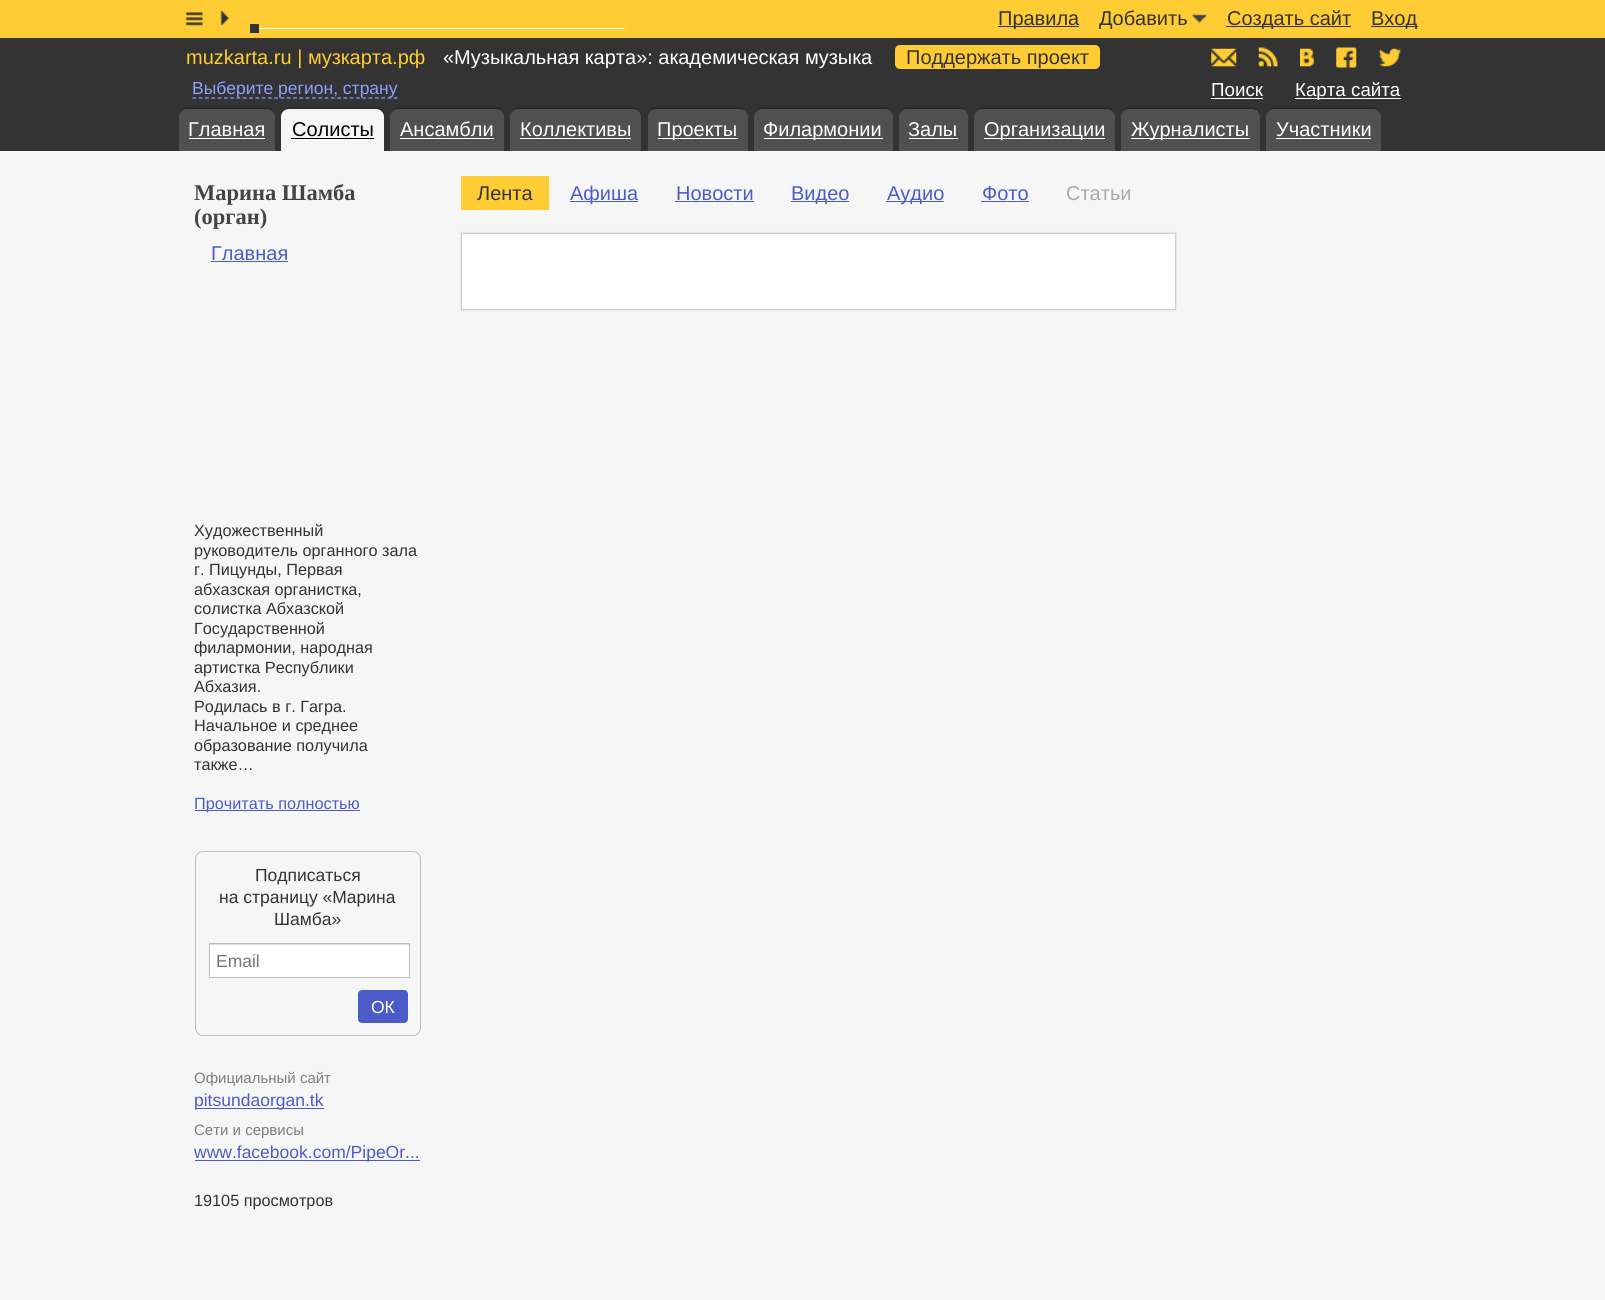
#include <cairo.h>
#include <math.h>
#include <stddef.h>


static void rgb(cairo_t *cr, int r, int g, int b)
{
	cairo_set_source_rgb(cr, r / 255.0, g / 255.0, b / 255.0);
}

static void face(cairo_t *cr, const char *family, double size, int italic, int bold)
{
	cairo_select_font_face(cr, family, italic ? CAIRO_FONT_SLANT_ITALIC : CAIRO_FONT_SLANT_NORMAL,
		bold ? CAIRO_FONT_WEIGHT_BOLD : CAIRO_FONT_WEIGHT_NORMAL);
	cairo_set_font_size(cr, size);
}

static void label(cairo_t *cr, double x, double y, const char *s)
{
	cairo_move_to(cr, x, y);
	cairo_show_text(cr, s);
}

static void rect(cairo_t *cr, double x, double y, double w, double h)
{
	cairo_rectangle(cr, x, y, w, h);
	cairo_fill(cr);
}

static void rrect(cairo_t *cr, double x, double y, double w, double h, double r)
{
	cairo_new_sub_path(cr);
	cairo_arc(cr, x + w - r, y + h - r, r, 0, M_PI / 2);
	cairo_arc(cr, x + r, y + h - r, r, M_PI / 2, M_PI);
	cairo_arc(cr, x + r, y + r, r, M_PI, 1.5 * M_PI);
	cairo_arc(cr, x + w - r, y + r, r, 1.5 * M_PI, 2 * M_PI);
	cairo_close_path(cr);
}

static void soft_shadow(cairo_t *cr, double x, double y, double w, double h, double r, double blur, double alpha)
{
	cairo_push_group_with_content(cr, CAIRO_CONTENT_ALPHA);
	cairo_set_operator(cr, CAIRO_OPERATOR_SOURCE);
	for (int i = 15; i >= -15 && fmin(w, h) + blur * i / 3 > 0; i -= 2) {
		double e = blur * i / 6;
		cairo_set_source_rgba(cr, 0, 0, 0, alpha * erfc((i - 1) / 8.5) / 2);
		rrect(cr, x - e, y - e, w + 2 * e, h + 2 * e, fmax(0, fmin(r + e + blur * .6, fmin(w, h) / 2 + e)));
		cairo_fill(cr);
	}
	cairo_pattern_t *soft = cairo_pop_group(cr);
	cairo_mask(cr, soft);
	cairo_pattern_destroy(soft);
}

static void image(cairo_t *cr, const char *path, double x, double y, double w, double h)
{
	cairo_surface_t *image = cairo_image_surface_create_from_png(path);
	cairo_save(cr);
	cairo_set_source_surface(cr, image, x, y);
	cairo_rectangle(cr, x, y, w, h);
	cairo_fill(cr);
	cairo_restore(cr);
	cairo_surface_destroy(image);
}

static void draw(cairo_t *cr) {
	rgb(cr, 246, 246, 246);
	cairo_paint(cr);
	rgb(cr, 255, 204, 51);
	rect(cr, 0, 0, 1605, 38);
	image(cr, "image0.png", 185, 12, 18, 14);
	image(cr, "image1.png", 220, 11, 10, 15);
	rgb(cr, 51, 51, 51);
	rect(cr, 998, 26, 81, 1);
	face(cr, "Liberation Sans", 20, 0, 0);
	label(cr, 998, 25, "Правила");
	label(cr, 1099, 25, "Добавить");
	image(cr, "image2.png", 1191, 14, 16, 10);
	rect(cr, 1226, 26, 125, 1);
	label(cr, 1227, 25, "Создать сайт");
	rect(cr, 1371, 26, 47, 1);
	label(cr, 1371, 25, "Вход");
	rect(cr, 250, 24, 9, 9);
	rgb(cr, 255, 255, 255);
	rect(cr, 259, 28, 366, 1);
	rgb(cr, 51, 51, 51);
	rect(cr, 0, 38, 1605, 113);
	rgb(cr, 255, 204, 51);
	label(cr, 186, 64, "muzkarta.ru | музкарта.рф");
	rgb(cr, 255, 255, 255);
	label(cr, 443, 64, "«Музыкальная карта»: академическая музыка");
	rgb(cr, 255, 204, 51);
	rrect(cr, 895.5, 45.5, 204, 23, 4.5);
	cairo_fill_preserve(cr);
	cairo_set_line_width(cr, 1);
	cairo_stroke(cr);
	rgb(cr, 51, 51, 51);
	label(cr, 906, 64, "Поддержать проект");
	image(cr, "image3.png", 1211, 48, 26, 19);
	image(cr, "image4.png", 1258, 47, 20, 20);
	image(cr, "image5.png", 1300, 48, 14, 19);
	image(cr, "image6.png", 1336, 47, 21, 21);
	image(cr, "image7.png", 1378, 48, 24, 19);
	cairo_new_path(cr);
	cairo_move_to(cr, 192.5, 98);
	cairo_line_to(cr, 397.5, 98);
	rgb(cr, 141, 162, 254);
	cairo_set_line_width(cr, 1.2);
	cairo_set_dash(cr, (double[]){3.75, 2.54}, 2, 0);
	cairo_stroke(cr);
	face(cr, "Liberation Sans", 17.5, 0, 0);
	label(cr, 192, 94, "Выберите регион, страну");
	face(cr, "Liberation Sans", 18.75, 0, 0);
	rgb(cr, 255, 255, 255);
	label(cr, 1211, 96, "Поиск");
	rect(cr, 1211, 98, 52, 1);
	rect(cr, 1295, 98, 106, 1);
	label(cr, 1295, 96, "Карта сайта");
	rgb(cr, 34, 34, 34);
	soft_shadow(cr, 180, 108, 94, 40, 6, 1, 1);
	rgb(cr, 80, 80, 80);
	cairo_new_path(cr);
	cairo_move_to(cr, 187, 109);
	cairo_line_to(cr, 267, 109);
	cairo_curve_to(cr, 271.5, 109, 275, 112.5, 275, 117);
	cairo_line_to(cr, 275, 151);
	cairo_line_to(cr, 179, 151);
	cairo_line_to(cr, 179, 117);
	cairo_curve_to(cr, 179, 112.5, 182.5, 109, 187, 109);
	cairo_close_path(cr);
	cairo_fill(cr);
	face(cr, "Liberation Sans", 20, 0, 0);
	rgb(cr, 255, 255, 255);
	label(cr, 188, 136, "Главная");
	rect(cr, 189, 138, 76, 1);
	rgb(cr, 34, 34, 34);
	soft_shadow(cr, 283, 108, 100, 40, 6, 1, 1);
	rgb(cr, 246, 246, 246);
	cairo_new_path(cr);
	cairo_move_to(cr, 289, 109);
	cairo_line_to(cr, 376, 109);
	cairo_curve_to(cr, 380.5, 109, 384, 112.5, 384, 117);
	cairo_line_to(cr, 384, 151);
	cairo_line_to(cr, 281, 151);
	cairo_line_to(cr, 281, 117);
	cairo_curve_to(cr, 281, 112.5, 284.5, 109, 289, 109);
	cairo_close_path(cr);
	cairo_fill(cr);
	rgb(cr, 0, 0, 0);
	label(cr, 292, 136, "Солисты");
	rect(cr, 291, 138, 83, 1);
	rgb(cr, 34, 34, 34);
	soft_shadow(cr, 391, 108, 112, 40, 6, 1, 1);
	rgb(cr, 80, 80, 80);
	cairo_new_path(cr);
	cairo_move_to(cr, 398, 109);
	cairo_line_to(cr, 496, 109);
	cairo_curve_to(cr, 500.5, 109, 504, 112.5, 504, 117);
	cairo_line_to(cr, 504, 151);
	cairo_line_to(cr, 390, 151);
	cairo_line_to(cr, 390, 117);
	cairo_curve_to(cr, 390, 112.5, 393.5, 109, 398, 109);
	cairo_close_path(cr);
	cairo_fill(cr);
	rgb(cr, 255, 255, 255);
	label(cr, 400, 136, "Ансамбли");
	rect(cr, 400, 138, 94, 1);
	rgb(cr, 34, 34, 34);
	soft_shadow(cr, 511, 108, 129, 40, 6, 1, 1);
	rgb(cr, 80, 80, 80);
	cairo_new_path(cr);
	cairo_move_to(cr, 518, 109);
	cairo_line_to(cr, 633, 109);
	cairo_curve_to(cr, 637.5, 109, 641, 112.5, 641, 117);
	cairo_line_to(cr, 641, 151);
	cairo_line_to(cr, 510, 151);
	cairo_line_to(cr, 510, 117);
	cairo_curve_to(cr, 510, 112.5, 513.5, 109, 518, 109);
	cairo_close_path(cr);
	cairo_fill(cr);
	rgb(cr, 255, 255, 255);
	label(cr, 520, 136, "Коллективы");
	rect(cr, 520, 138, 111, 1);
	rgb(cr, 34, 34, 34);
	soft_shadow(cr, 649, 108, 97, 40, 6, 1, 1);
	rgb(cr, 80, 80, 80);
	cairo_new_path(cr);
	cairo_move_to(cr, 656, 109);
	cairo_line_to(cr, 740, 109);
	cairo_curve_to(cr, 744.5, 109, 748, 112.5, 748, 117);
	cairo_line_to(cr, 748, 151);
	cairo_line_to(cr, 648, 151);
	cairo_line_to(cr, 648, 117);
	cairo_curve_to(cr, 648, 112.5, 651.5, 109, 656, 109);
	cairo_close_path(cr);
	cairo_fill(cr);
	rgb(cr, 255, 255, 255);
	rect(cr, 658, 138, 80, 1);
	label(cr, 657, 136, "Проекты");
	rgb(cr, 34, 34, 34);
	soft_shadow(cr, 755, 108, 136, 40, 6, 1, 1);
	rgb(cr, 80, 80, 80);
	cairo_new_path(cr);
	cairo_move_to(cr, 762, 109);
	cairo_line_to(cr, 885, 109);
	cairo_curve_to(cr, 889.5, 109, 893, 112.5, 893, 117);
	cairo_line_to(cr, 893, 151);
	cairo_line_to(cr, 754, 151);
	cairo_line_to(cr, 754, 117);
	cairo_curve_to(cr, 754, 112.5, 757.5, 109, 762, 109);
	cairo_close_path(cr);
	cairo_fill(cr);
	rgb(cr, 255, 255, 255);
	rect(cr, 764, 138, 119, 1);
	label(cr, 763, 136, "Филармонии");
	rgb(cr, 34, 34, 34);
	soft_shadow(cr, 900, 108, 66, 40, 6, 1, 1);
	rgb(cr, 80, 80, 80);
	cairo_new_path(cr);
	cairo_move_to(cr, 907, 109);
	cairo_line_to(cr, 960, 109);
	cairo_curve_to(cr, 964.5, 109, 968, 112.5, 968, 117);
	cairo_line_to(cr, 968, 151);
	cairo_line_to(cr, 899, 151);
	cairo_line_to(cr, 899, 117);
	cairo_curve_to(cr, 899, 112.5, 902.5, 109, 907, 109);
	cairo_close_path(cr);
	cairo_fill(cr);
	rgb(cr, 255, 255, 255);
	label(cr, 908, 136, "Залы");
	rect(cr, 909, 138, 49, 1);
	rgb(cr, 34, 34, 34);
	soft_shadow(cr, 975, 108, 139, 40, 6, 1, 1);
	rgb(cr, 80, 80, 80);
	cairo_new_path(cr);
	cairo_move_to(cr, 982, 109);
	cairo_line_to(cr, 1107, 109);
	cairo_curve_to(cr, 1111.5, 109, 1115, 112.5, 1115, 117);
	cairo_line_to(cr, 1115, 151);
	cairo_line_to(cr, 974, 151);
	cairo_line_to(cr, 974, 117);
	cairo_curve_to(cr, 974, 112.5, 977.5, 109, 982, 109);
	cairo_close_path(cr);
	cairo_fill(cr);
	rgb(cr, 255, 255, 255);
	rect(cr, 984, 138, 121, 1);
	label(cr, 984, 136, "Организации");
	rgb(cr, 34, 34, 34);
	soft_shadow(cr, 1123, 108, 136, 40, 6, 1, 1);
	rgb(cr, 80, 80, 80);
	cairo_new_path(cr);
	cairo_move_to(cr, 1129, 109);
	cairo_line_to(cr, 1252, 109);
	cairo_curve_to(cr, 1256.5, 109, 1260, 112.5, 1260, 117);
	cairo_line_to(cr, 1260, 151);
	cairo_line_to(cr, 1121, 151);
	cairo_line_to(cr, 1121, 117);
	cairo_curve_to(cr, 1121, 112.5, 1124.5, 109, 1129, 109);
	cairo_close_path(cr);
	cairo_fill(cr);
	rgb(cr, 255, 255, 255);
	rect(cr, 1131, 138, 119, 1);
	label(cr, 1131, 136, "Журналисты");
	rgb(cr, 34, 34, 34);
	soft_shadow(cr, 1268, 108, 112, 40, 6, 1, 1);
	rgb(cr, 80, 80, 80);
	cairo_new_path(cr);
	cairo_move_to(cr, 1274, 109);
	cairo_line_to(cr, 1373, 109);
	cairo_curve_to(cr, 1377.5, 109, 1381, 112.5, 1381, 117);
	cairo_line_to(cr, 1381, 151);
	cairo_line_to(cr, 1266, 151);
	cairo_line_to(cr, 1266, 117);
	cairo_curve_to(cr, 1266, 112.5, 1269.5, 109, 1274, 109);
	cairo_close_path(cr);
	cairo_fill(cr);
	rgb(cr, 255, 255, 255);
	label(cr, 1276, 136, "Участники");
	rect(cr, 1276, 138, 95, 1);
	face(cr, "Liberation Serif", 22.5, 0, 1);
	rgb(cr, 68, 68, 68);
	label(cr, 194, 200, "Марина Шамба");
	label(cr, 194, 224, "(орган)");
	face(cr, "Liberation Sans", 20, 0, 0);
	rgb(cr, 75, 92, 200);
	label(cr, 211, 260, "Главная");
	rect(cr, 211, 261, 77, 1);
	face(cr, "Liberation Sans", 16.25, 0, 0);
	rgb(cr, 51, 51, 51);
	label(cr, 194, 536, "Художественный");
	label(cr, 194, 556, "руководитель органного зала");
	label(cr, 194, 575, "г. Пицунды, Первая");
	label(cr, 194, 595, "абхазская органистка,");
	label(cr, 194, 614, "солистка Абхазской");
	label(cr, 194, 634, "Государственной");
	label(cr, 194, 653, "филармонии, народная");
	label(cr, 194, 673, "артистка Республики");
	label(cr, 194, 692, "Абхазия.");
	label(cr, 194, 712, "Родилась в г. Гагра.");
	label(cr, 194, 731, "Начальное и среднее");
	label(cr, 194, 751, "образование получила");
	label(cr, 194, 770, "также…");
	rgb(cr, 75, 92, 200);
	rect(cr, 195, 810, 165, 1);
	label(cr, 194, 809, "Прочитать полностью");
	rrect(cr, 195.5, 851.5, 225, 184, 7.5);
	rgb(cr, 187, 187, 187);
	cairo_set_line_width(cr, 1);
	cairo_set_dash(cr, NULL, 0, 0);
	cairo_stroke(cr);
	face(cr, "Liberation Sans", 17.5, 0, 0);
	rgb(cr, 51, 51, 51);
	label(cr, 255, 881, "Подписаться");
	label(cr, 219, 903, "на страницу «Марина");
	label(cr, 274, 925, "Шамба»");
	rgb(cr, 255, 255, 255);
	rect(cr, 210, 945, 199, 32);
	rgb(cr, 221, 221, 221);
	rect(cr, 210, 944, 199, 1);
	cairo_rectangle(cr, 209.5, 943.5, 200, 34);
	rgb(cr, 187, 187, 187);
	cairo_stroke(cr);
	rgb(cr, 117, 117, 117);
	label(cr, 216, 967, "Email");
	rgb(cr, 75, 92, 200);
	rrect(cr, 358, 990, 50, 33, 4);
	cairo_fill(cr);
	rgb(cr, 255, 255, 255);
	label(cr, 371, 1013, "ОК");
	face(cr, "Liberation Sans", 15, 0, 0);
	rgb(cr, 125, 125, 125);
	label(cr, 194, 1083, "Официальный сайт");
	rgb(cr, 75, 92, 200);
	rect(cr, 195, 1108, 129, 1);
	face(cr, "Liberation Sans", 17.5, 0, 0);
	label(cr, 194, 1106, "pitsundaorgan.tk");
	face(cr, "Liberation Sans", 15, 0, 0);
	rgb(cr, 125, 125, 125);
	label(cr, 194, 1135, "Сети и сервисы");
	rgb(cr, 75, 92, 200);
	rect(cr, 195, 1160, 225, 1);
	face(cr, "Liberation Sans", 17.5, 0, 0);
	label(cr, 194, 1158, "www.facebook.com/PipeOr...");
	face(cr, "Liberation Sans", 16.25, 0, 0);
	rgb(cr, 51, 51, 51);
	label(cr, 194, 1206, "19105 просмотров");
	rgb(cr, 255, 204, 51);
	rect(cr, 461, 176, 88, 34);
	face(cr, "Liberation Sans", 20, 0, 0);
	rgb(cr, 51, 51, 51);
	label(cr, 477, 200, "Лента");
	rgb(cr, 75, 92, 200);
	rect(cr, 570, 201, 68, 1);
	label(cr, 570, 200, "Афиша");
	label(cr, 676, 200, "Новости");
	rect(cr, 675, 201, 79, 1);
	rect(cr, 791, 201, 58, 1);
	label(cr, 791, 200, "Видео");
	rect(cr, 886, 201, 58, 1);
	label(cr, 887, 200, "Аудио");
	label(cr, 982, 200, "Фото");
	rect(cr, 981, 201, 48, 1);
	rgb(cr, 170, 170, 170);
	label(cr, 1066, 200, "Статьи");
	rgb(cr, 208, 208, 208);
	soft_shadow(cr, 461, 233, 715, 77, 0, 1, 1);
	rgb(cr, 255, 255, 255);
	cairo_rectangle(cr, 461.5, 233.5, 714, 76);
	cairo_fill_preserve(cr);
	rgb(cr, 208, 208, 208);
	cairo_stroke(cr);
}

int main(void) {
	cairo_surface_t *surface = cairo_image_surface_create(CAIRO_FORMAT_RGB24, 1605, 1300);
	cairo_t *cr = cairo_create(surface);
	cairo_font_options_t *options = cairo_font_options_create();
	cairo_font_options_set_hint_metrics(options, CAIRO_HINT_METRICS_OFF);
	cairo_font_options_set_hint_style(options, CAIRO_HINT_STYLE_NONE);
	cairo_set_font_options(cr, options);
	cairo_set_miter_limit(cr, 4);
	draw(cr);
	cairo_surface_write_to_png(surface, "render.png");
	cairo_font_options_destroy(options);
	cairo_destroy(cr);
	cairo_surface_destroy(surface);
	return 0;
}
